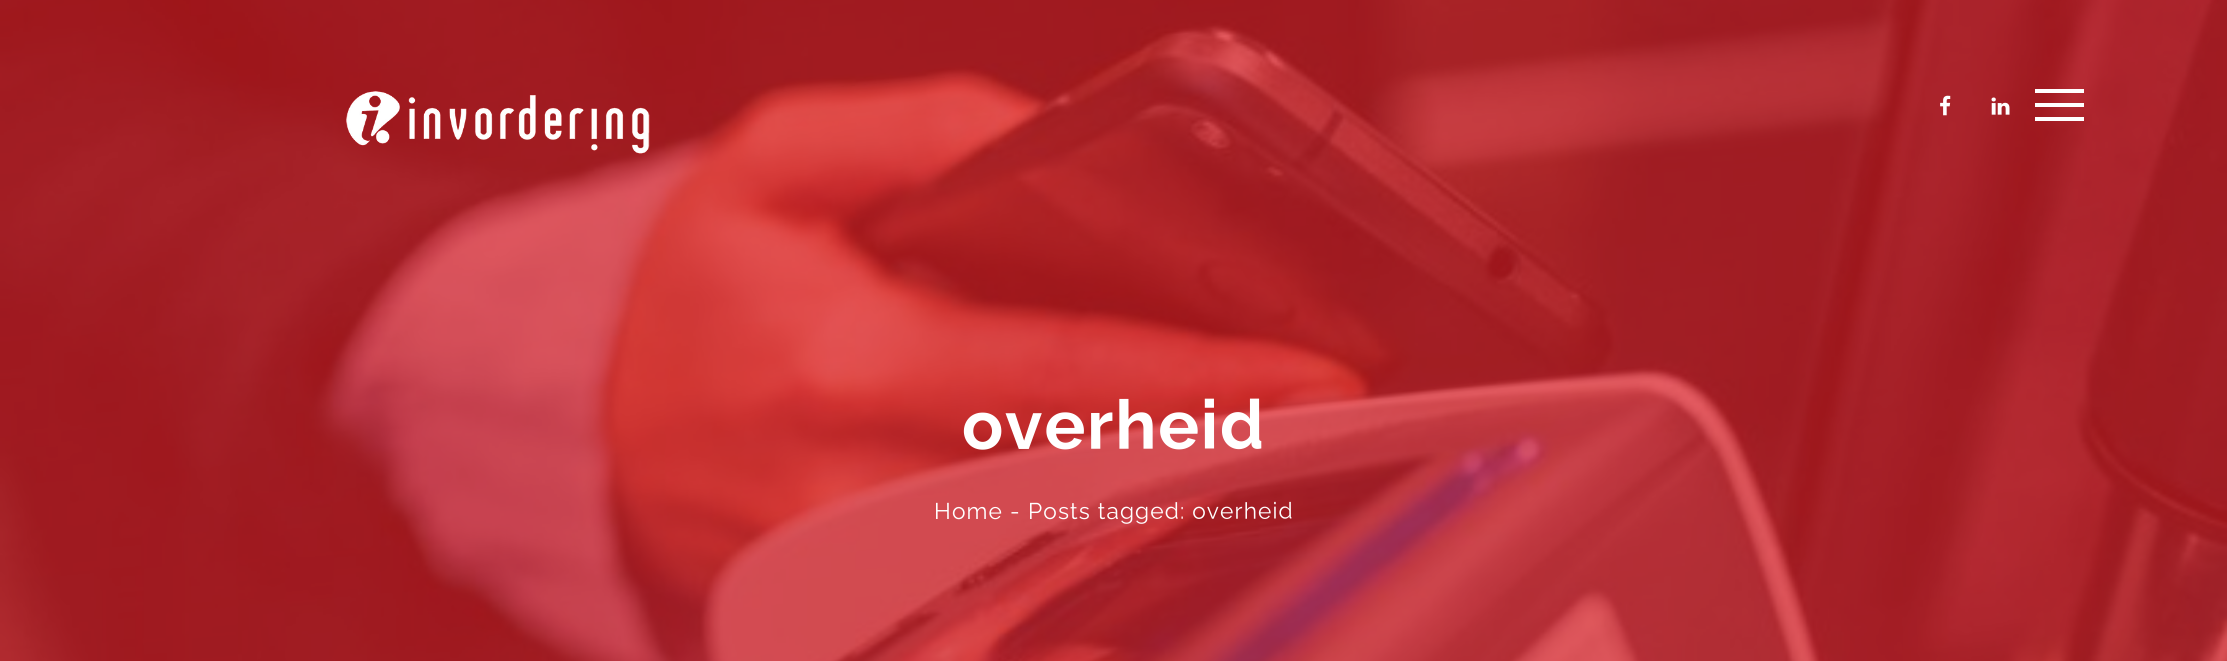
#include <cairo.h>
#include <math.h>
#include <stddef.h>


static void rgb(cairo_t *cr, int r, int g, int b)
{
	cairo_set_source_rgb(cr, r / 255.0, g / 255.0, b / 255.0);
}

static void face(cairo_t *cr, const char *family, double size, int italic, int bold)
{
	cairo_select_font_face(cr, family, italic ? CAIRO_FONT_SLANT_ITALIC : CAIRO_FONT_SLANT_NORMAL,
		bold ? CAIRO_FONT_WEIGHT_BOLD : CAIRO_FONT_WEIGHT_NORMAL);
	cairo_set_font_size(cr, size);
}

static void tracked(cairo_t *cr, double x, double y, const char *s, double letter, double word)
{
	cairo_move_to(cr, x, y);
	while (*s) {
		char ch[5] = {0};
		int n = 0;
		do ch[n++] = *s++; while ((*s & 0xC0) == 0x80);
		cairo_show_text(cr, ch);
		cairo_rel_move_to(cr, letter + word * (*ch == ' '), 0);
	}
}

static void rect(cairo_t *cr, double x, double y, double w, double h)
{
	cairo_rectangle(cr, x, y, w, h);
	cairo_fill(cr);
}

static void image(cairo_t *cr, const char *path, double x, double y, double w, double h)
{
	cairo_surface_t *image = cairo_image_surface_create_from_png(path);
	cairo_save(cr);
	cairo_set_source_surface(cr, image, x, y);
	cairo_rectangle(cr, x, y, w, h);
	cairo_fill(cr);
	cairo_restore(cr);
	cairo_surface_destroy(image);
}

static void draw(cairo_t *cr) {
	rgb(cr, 255, 255, 255);
	cairo_paint(cr);
	image(cr, "image3.png", 0, 0, 2227, 661);
	image(cr, "image0.png", 346, 91, 304, 63);
	image(cr, "image1.png", 1940, 95, 11, 21);
	image(cr, "image2.png", 1991, 97, 19, 18);
	rgb(cr, 255, 255, 255);
	rect(cr, 2035, 103, 49, 4);
	rect(cr, 2035, 89, 49, 4);
	rect(cr, 2035, 117, 49, 4);
	face(cr, "Raleway", 68.25, 0, 1);
	cairo_save(cr);
	cairo_translate(cr, 962, 449);
	cairo_rotate(cr, -0.1 * M_PI / 180);
	tracked(cr, 0, 0, "overheid", 1.75, 0);
	cairo_restore(cr);
	face(cr, "Raleway", 22.75, 0, 0);
	cairo_save(cr);
	cairo_translate(cr, 934, 519);
	cairo_rotate(cr, -0.1 * M_PI / 180);
	tracked(cr, 0, 0, "Home", 1.1, 0);
	cairo_restore(cr);
	cairo_save(cr);
	cairo_translate(cr, 1010, 519);
	cairo_rotate(cr, -0.1 * M_PI / 180);
	tracked(cr, 0, 0, "-", 1.1, 0);
	cairo_restore(cr);
	cairo_save(cr);
	cairo_translate(cr, 1028, 519);
	cairo_rotate(cr, -0.1 * M_PI / 180);
	tracked(cr, 0, 0, "Posts tagged: overheid", 1.1, 0);
	cairo_restore(cr);
}

int main(void) {
	cairo_surface_t *surface = cairo_image_surface_create(CAIRO_FORMAT_RGB24, 2227, 661);
	cairo_t *cr = cairo_create(surface);
	cairo_font_options_t *options = cairo_font_options_create();
	cairo_font_options_set_hint_metrics(options, CAIRO_HINT_METRICS_OFF);
	cairo_font_options_set_hint_style(options, CAIRO_HINT_STYLE_NONE);
	cairo_set_font_options(cr, options);
	cairo_set_miter_limit(cr, 4);
	draw(cr);
	cairo_surface_write_to_png(surface, "render.png");
	cairo_font_options_destroy(options);
	cairo_destroy(cr);
	cairo_surface_destroy(surface);
	return 0;
}
